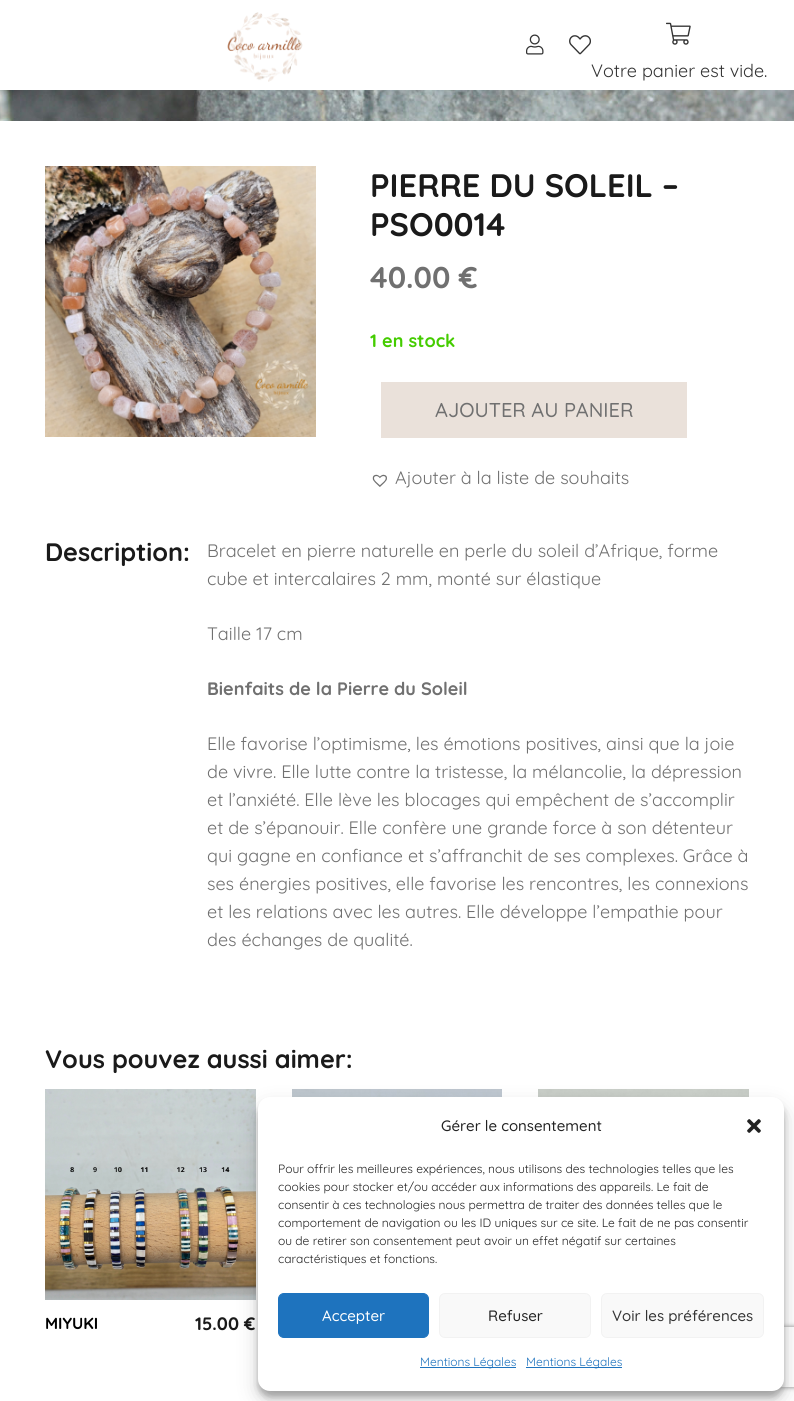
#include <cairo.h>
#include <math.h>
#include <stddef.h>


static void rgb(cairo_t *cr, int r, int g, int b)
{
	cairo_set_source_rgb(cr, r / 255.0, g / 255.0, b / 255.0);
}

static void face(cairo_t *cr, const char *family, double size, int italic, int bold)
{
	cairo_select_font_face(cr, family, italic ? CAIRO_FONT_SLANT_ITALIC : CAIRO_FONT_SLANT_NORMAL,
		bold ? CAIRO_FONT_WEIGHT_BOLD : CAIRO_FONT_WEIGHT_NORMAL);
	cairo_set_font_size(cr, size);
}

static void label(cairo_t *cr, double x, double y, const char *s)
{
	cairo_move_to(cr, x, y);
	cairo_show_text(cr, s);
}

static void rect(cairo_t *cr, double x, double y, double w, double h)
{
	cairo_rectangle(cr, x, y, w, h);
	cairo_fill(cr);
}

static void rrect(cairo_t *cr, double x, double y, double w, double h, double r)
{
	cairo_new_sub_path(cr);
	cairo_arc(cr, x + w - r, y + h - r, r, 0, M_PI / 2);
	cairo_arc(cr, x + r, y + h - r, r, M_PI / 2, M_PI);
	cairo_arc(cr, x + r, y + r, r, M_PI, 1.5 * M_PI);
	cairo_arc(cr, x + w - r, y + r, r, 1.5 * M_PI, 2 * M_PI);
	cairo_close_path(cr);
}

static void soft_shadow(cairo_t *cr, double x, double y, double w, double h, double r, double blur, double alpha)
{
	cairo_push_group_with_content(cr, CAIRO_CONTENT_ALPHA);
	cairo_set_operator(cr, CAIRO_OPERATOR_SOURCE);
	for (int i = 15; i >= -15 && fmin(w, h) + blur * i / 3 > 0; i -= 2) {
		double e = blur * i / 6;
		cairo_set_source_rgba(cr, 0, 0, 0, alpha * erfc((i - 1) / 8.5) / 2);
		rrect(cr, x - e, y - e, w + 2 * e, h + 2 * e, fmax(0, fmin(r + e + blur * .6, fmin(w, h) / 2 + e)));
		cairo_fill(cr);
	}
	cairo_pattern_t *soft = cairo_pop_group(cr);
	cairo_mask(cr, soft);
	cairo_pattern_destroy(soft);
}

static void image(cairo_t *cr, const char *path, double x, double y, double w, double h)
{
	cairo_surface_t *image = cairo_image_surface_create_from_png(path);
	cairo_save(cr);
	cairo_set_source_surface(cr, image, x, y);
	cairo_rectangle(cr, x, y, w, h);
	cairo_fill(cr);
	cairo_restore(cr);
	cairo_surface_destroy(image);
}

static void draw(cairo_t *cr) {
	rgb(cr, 255, 255, 255);
	cairo_paint(cr);
	image(cr, "image0.png", 227, 12, 76, 70);
	image(cr, "image1.png", 526, 34, 18, 21);
	image(cr, "image2.png", 569, 35, 22, 20);
	image(cr, "image3.png", 666, 22, 25, 23);
	face(cr, "Quicksand", 18, 0, 0);
	rgb(cr, 51, 51, 51);
	label(cr, 591, 77, "Votre panier est vide.");
	image(cr, "image4.png", 0, 90, 794, 31);
	image(cr, "image5.png", 45, 166, 271, 271);
	face(cr, "Quicksand", 32.5, 0, 1);
	rgb(cr, 26, 26, 26);
	label(cr, 370, 197, "PIERRE DU SOLEIL –");
	label(cr, 370, 236, "PSO0014");
	face(cr, "Quicksand", 30, 0, 1);
	rgb(cr, 112, 112, 112);
	label(cr, 370, 288, "40.00 €");
	face(cr, "Quicksand", 18, 0, 1);
	rgb(cr, 68, 204, 0);
	label(cr, 370, 347, "1 en stock");
	rgb(cr, 234, 225, 218);
	rect(cr, 381, 382, 306, 56);
	face(cr, "Quicksand Medium", 20, 0, 0);
	rgb(cr, 112, 112, 112);
	label(cr, 435, 417, "AJOUTER AU PANIER");
	image(cr, "image6.png", 372, 474, 15, 13);
	face(cr, "Quicksand", 18, 0, 0);
	label(cr, 395, 484, "Ajouter à la liste de souhaits");
	face(cr, "Quicksand", 25.25, 0, 1);
	rgb(cr, 26, 26, 26);
	label(cr, 45, 561, "Description:");
	face(cr, "Quicksand", 18, 0, 0);
	rgb(cr, 112, 112, 112);
	label(cr, 207, 557, "Bracelet en pierre naturelle en perle du soleil d’Afrique, forme");
	label(cr, 207, 585, "cube et intercalaires 2 mm, monté sur élastique");
	label(cr, 207, 640, "Taille 17 cm");
	face(cr, "Quicksand", 18, 0, 1);
	label(cr, 207, 695, "Bienfaits de la Pierre du Soleil");
	face(cr, "Quicksand", 18, 0, 0);
	label(cr, 207, 750, "Elle favorise l’optimisme, les émotions positives, ainsi que la joie");
	label(cr, 207, 778, "de vivre. Elle lutte contre la tristesse, la mélancolie, la dépression");
	label(cr, 207, 806, "et l’anxiété. Elle lève les blocages qui empêchent de s’accomplir");
	label(cr, 207, 834, "et de s’épanouir. Elle confère une grande force à son détenteur");
	label(cr, 207, 862, "qui gagne en confiance et s’affranchit de ses complexes. Grâce à");
	label(cr, 207, 890, "ses énergies positives, elle favorise les rencontres, les connexions");
	label(cr, 207, 918, "et les relations avec les autres. Elle développe l’empathie pour");
	label(cr, 207, 946, "des échanges de qualité.");
	face(cr, "Quicksand", 25.25, 0, 1);
	rgb(cr, 26, 26, 26);
	label(cr, 45, 1068, "Vous pouvez aussi aimer:");
	image(cr, "image7.png", 292, 1089, 210, 8);
	image(cr, "image8.png", 538, 1089, 211, 8);
	image(cr, "image9.png", 45, 1089, 211, 211);
	face(cr, "Quicksand", 16, 0, 1);
	rgb(cr, 0, 0, 0);
	label(cr, 45, 1329, "MIYUKI");
	face(cr, "Quicksand", 18, 0, 1);
	rgb(cr, 26, 26, 26);
	label(cr, 195, 1330, "15.00 €");
	rgb(cr, 0, 0, 0);
	soft_shadow(cr, 258, 1103, 526, 294, 12, 3, 0.23);
	soft_shadow(cr, 258, 1107, 526, 294, 12, 10, 0.19);
	cairo_save(cr);
	cairo_set_fill_rule(cr, CAIRO_FILL_RULE_EVEN_ODD);
	cairo_new_path(cr);
	cairo_move_to(cr, 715, 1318);
	cairo_line_to(cr, 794, 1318);
	cairo_line_to(cr, 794, 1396);
	cairo_line_to(cr, 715, 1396);
	cairo_close_path(cr);
	cairo_move_to(cr, 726, 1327);
	cairo_line_to(cr, 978, 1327);
	cairo_curve_to(cr, 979, 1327, 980, 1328, 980, 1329);
	cairo_line_to(cr, 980, 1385);
	cairo_curve_to(cr, 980, 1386, 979, 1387, 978, 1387);
	cairo_line_to(cr, 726, 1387);
	cairo_curve_to(cr, 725, 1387, 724, 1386, 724, 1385);
	cairo_line_to(cr, 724, 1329);
	cairo_curve_to(cr, 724, 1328, 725, 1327, 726, 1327);
	cairo_close_path(cr);
	cairo_clip(cr);
	rgb(cr, 128, 128, 128);
	soft_shadow(cr, 724, 1327, 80, 60, 2, 2.5, 1);
	cairo_restore(cr);
	rgb(cr, 255, 255, 255);
	rrect(cr, 258, 1097, 526, 294, 12);
	cairo_fill(cr);
	face(cr, "Quicksand Medium", 15, 0, 0);
	rgb(cr, 34, 34, 34);
	label(cr, 441, 1131, "Gérer le consentement");
	image(cr, "image10.png", 747, 1119, 14, 14);
	face(cr, "Quicksand", 12, 0, 0);
	label(cr, 278, 1173, "Pour offrir les meilleures expériences, nous utilisons des technologies telles que les");
	label(cr, 278, 1191, "cookies pour stocker et/ou accéder aux informations des appareils. Le fait de");
	label(cr, 278, 1209, "consentir à ces technologies nous permettra de traiter des données telles que le");
	label(cr, 278, 1227, "comportement de navigation ou les ID uniques sur ce site. Le fait de ne pas consentir");
	label(cr, 278, 1245, "ou de retirer son consentement peut avoir un effet négatif sur certaines");
	label(cr, 278, 1263, "caractéristiques et fonctions.");
	rgb(cr, 30, 115, 190);
	rrect(cr, 278.5, 1293.5, 150, 44, 5.5);
	cairo_fill_preserve(cr);
	cairo_set_line_width(cr, 1);
	cairo_stroke(cr);
	face(cr, "Quicksand Medium", 15, 0, 0);
	rgb(cr, 255, 255, 255);
	label(cr, 322, 1321, "Accepter");
	rgb(cr, 249, 249, 249);
	rrect(cr, 439.5, 1293.5, 151, 44, 5.5);
	cairo_fill_preserve(cr);
	rgb(cr, 242, 242, 242);
	cairo_stroke(cr);
	rgb(cr, 34, 34, 34);
	label(cr, 488, 1321, "Refuser");
	rgb(cr, 249, 249, 249);
	rrect(cr, 601.5, 1293.5, 162, 44, 5.5);
	cairo_fill_preserve(cr);
	rgb(cr, 242, 242, 242);
	cairo_stroke(cr);
	rgb(cr, 51, 51, 51);
	label(cr, 612, 1321, "Voir les préférences");
	rgb(cr, 30, 115, 190);
	rect(cr, 420, 1367, 96, 1);
	face(cr, "Quicksand", 12, 0, 0);
	label(cr, 420, 1366, "Mentions Légales");
	rect(cr, 526, 1367, 96, 1);
	label(cr, 526, 1366, "Mentions Légales");
}

int main(void) {
	cairo_surface_t *surface = cairo_image_surface_create(CAIRO_FORMAT_RGB24, 794, 1401);
	cairo_t *cr = cairo_create(surface);
	cairo_font_options_t *options = cairo_font_options_create();
	cairo_font_options_set_hint_metrics(options, CAIRO_HINT_METRICS_OFF);
	cairo_font_options_set_hint_style(options, CAIRO_HINT_STYLE_NONE);
	cairo_set_font_options(cr, options);
	cairo_set_miter_limit(cr, 4);
	draw(cr);
	cairo_surface_write_to_png(surface, "render.png");
	cairo_font_options_destroy(options);
	cairo_destroy(cr);
	cairo_surface_destroy(surface);
	return 0;
}
